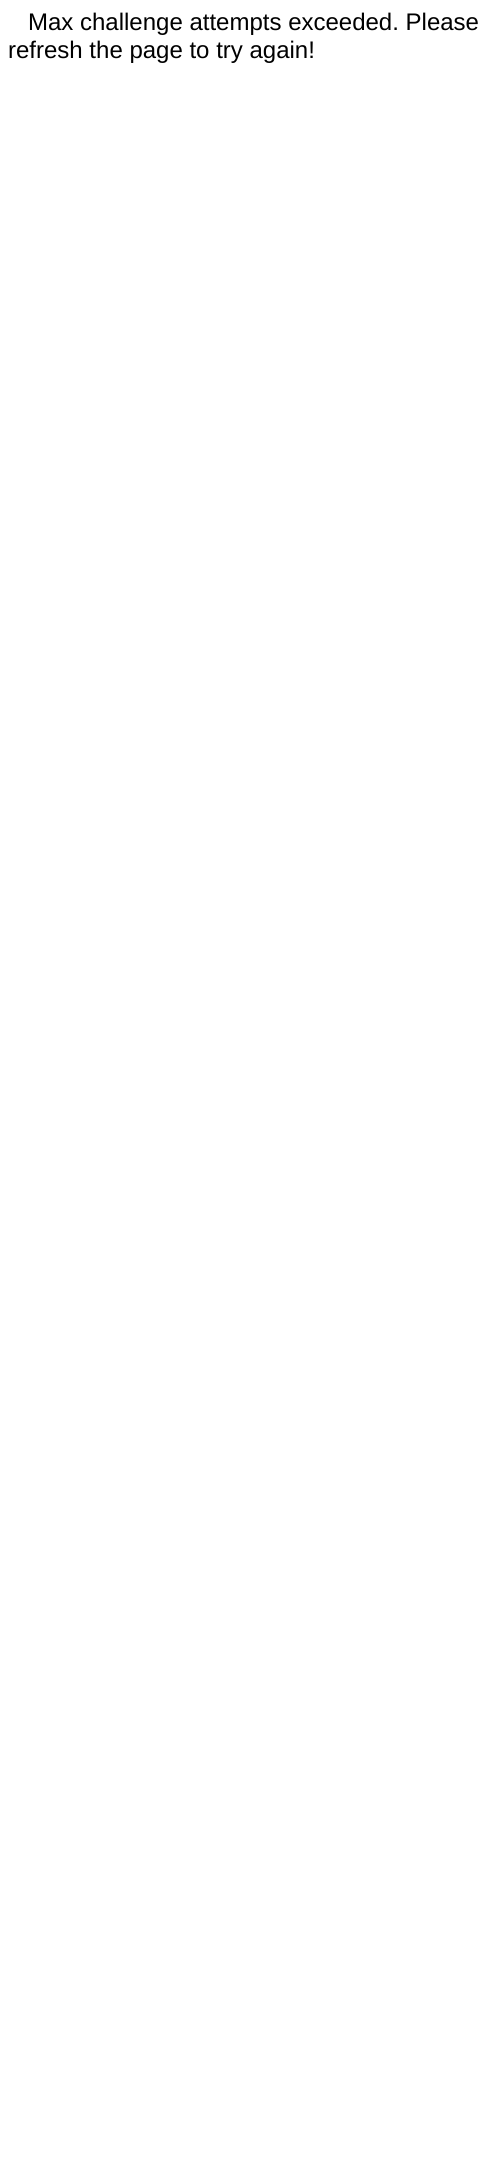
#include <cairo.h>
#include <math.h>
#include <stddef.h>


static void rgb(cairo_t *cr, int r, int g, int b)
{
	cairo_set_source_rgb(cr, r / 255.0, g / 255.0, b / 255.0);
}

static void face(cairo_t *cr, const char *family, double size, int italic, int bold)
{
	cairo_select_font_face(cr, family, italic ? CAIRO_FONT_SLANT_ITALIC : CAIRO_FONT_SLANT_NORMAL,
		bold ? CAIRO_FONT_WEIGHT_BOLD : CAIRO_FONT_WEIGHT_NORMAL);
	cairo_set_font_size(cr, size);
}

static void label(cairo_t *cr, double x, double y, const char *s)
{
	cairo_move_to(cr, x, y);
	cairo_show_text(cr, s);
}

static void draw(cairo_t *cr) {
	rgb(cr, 255, 255, 255);
	cairo_paint(cr);
	face(cr, "Liberation Sans", 24, 0, 0);
	rgb(cr, 0, 0, 0);
	label(cr, 28, 30, "Max challenge attempts exceeded. Please");
	label(cr, 8, 58, "refresh the page to try again!");
}

int main(void) {
	cairo_surface_t *surface = cairo_image_surface_create(CAIRO_FORMAT_RGB24, 498, 2169);
	cairo_t *cr = cairo_create(surface);
	cairo_font_options_t *options = cairo_font_options_create();
	cairo_font_options_set_hint_metrics(options, CAIRO_HINT_METRICS_OFF);
	cairo_font_options_set_hint_style(options, CAIRO_HINT_STYLE_NONE);
	cairo_set_font_options(cr, options);
	cairo_set_miter_limit(cr, 4);
	draw(cr);
	cairo_surface_write_to_png(surface, "render.png");
	cairo_font_options_destroy(options);
	cairo_destroy(cr);
	cairo_surface_destroy(surface);
	return 0;
}
